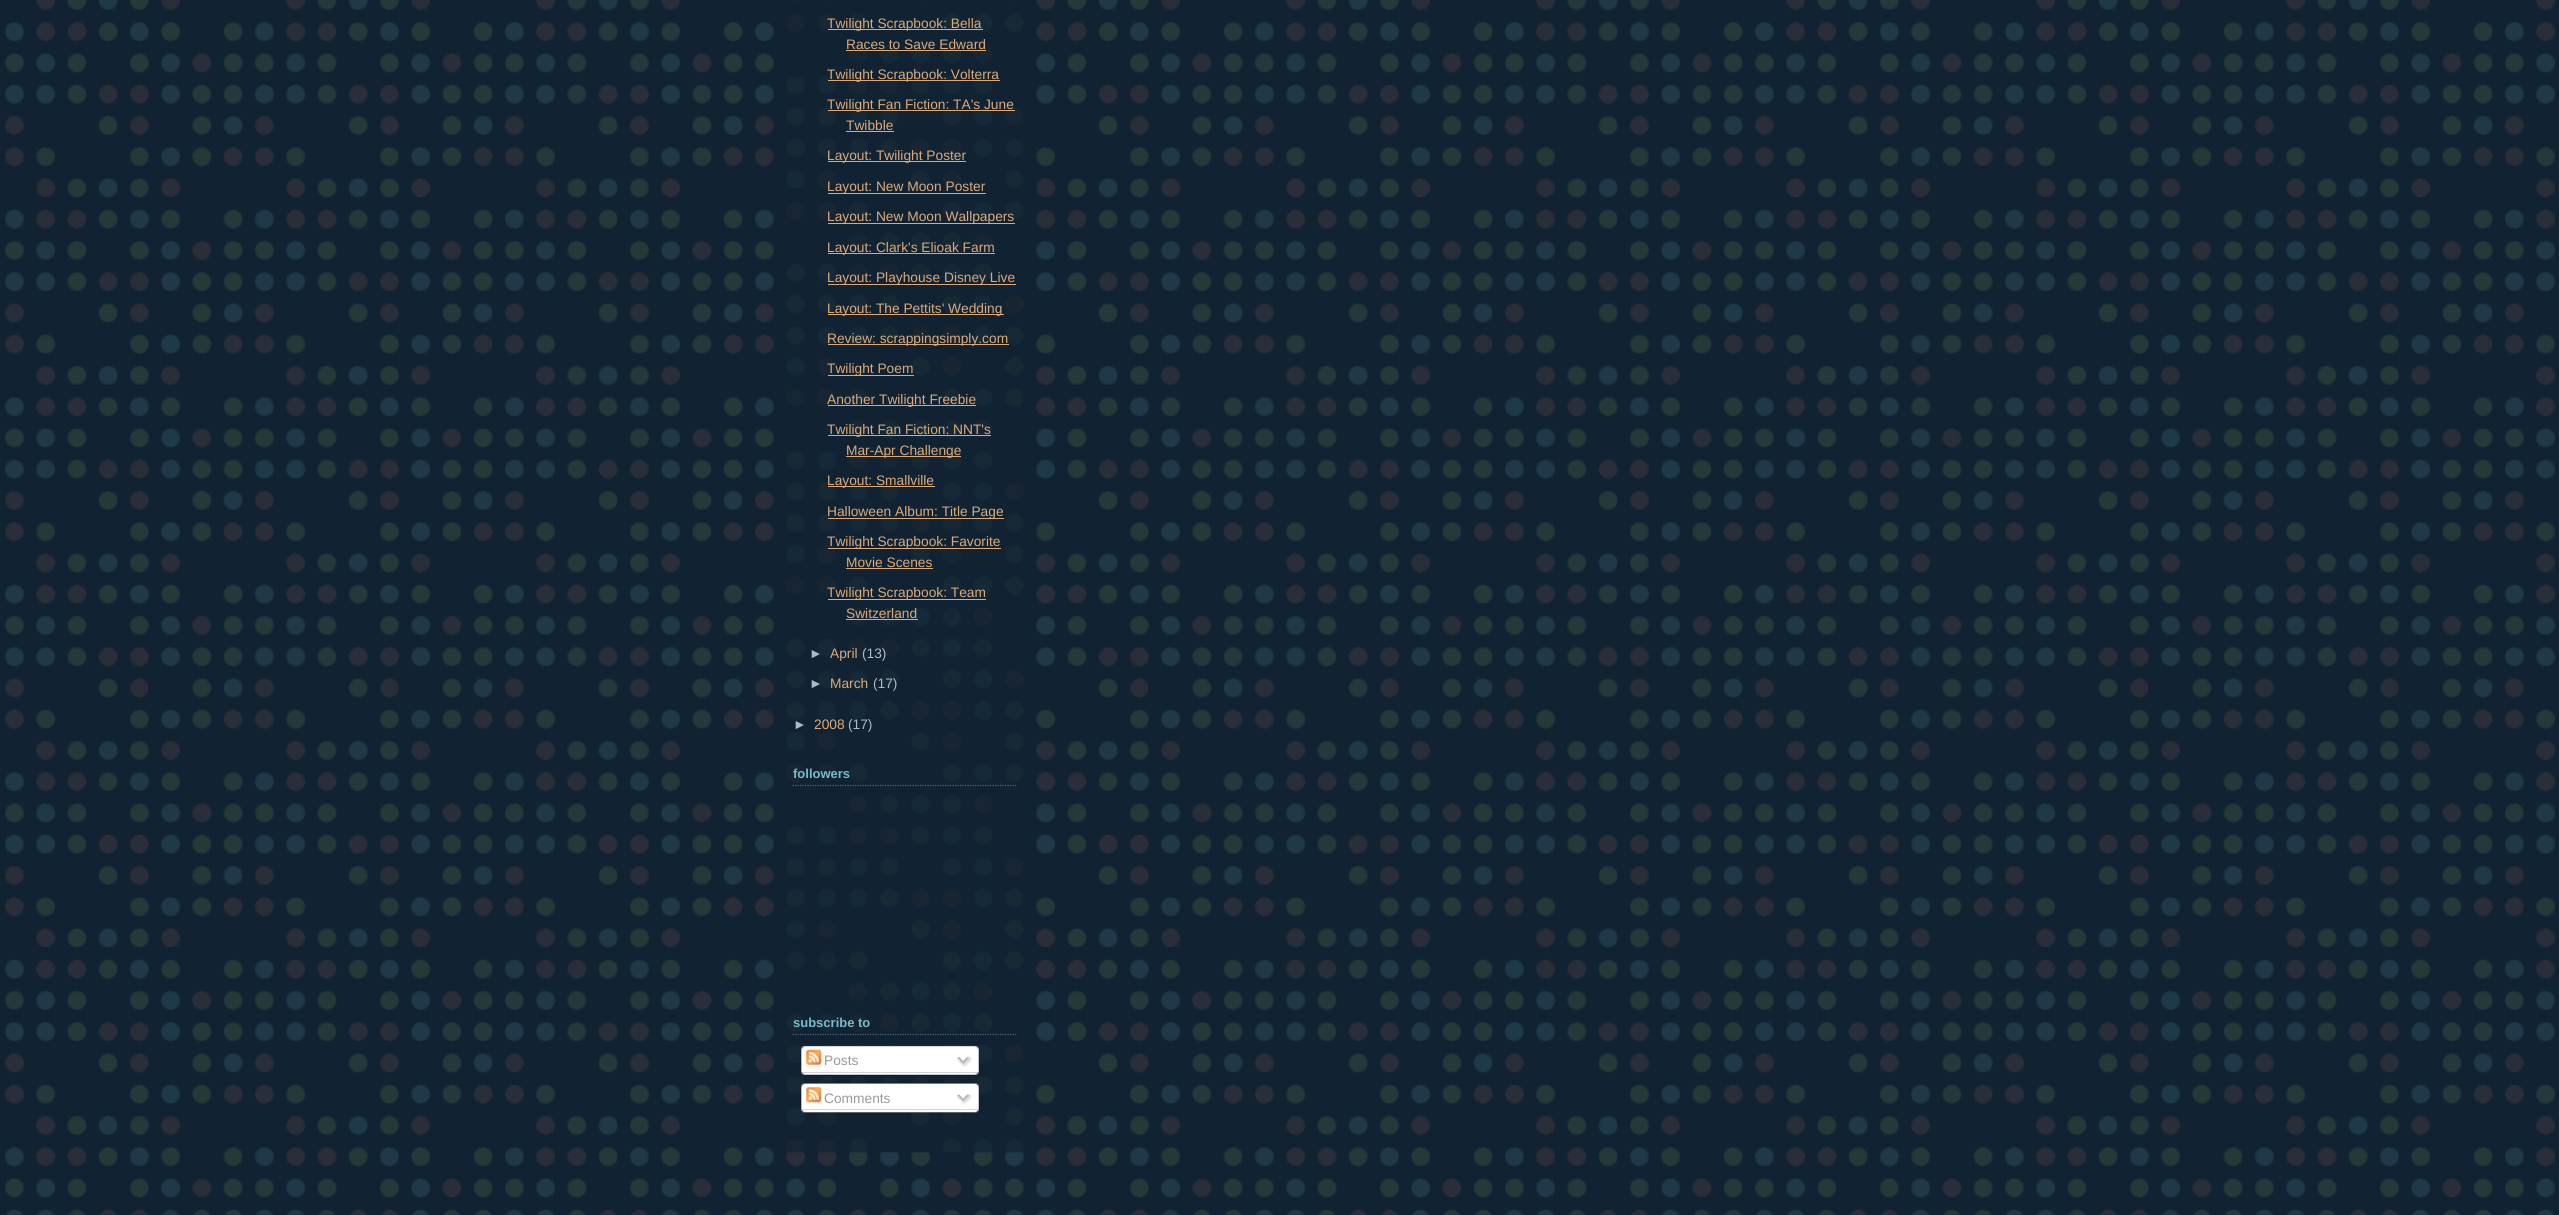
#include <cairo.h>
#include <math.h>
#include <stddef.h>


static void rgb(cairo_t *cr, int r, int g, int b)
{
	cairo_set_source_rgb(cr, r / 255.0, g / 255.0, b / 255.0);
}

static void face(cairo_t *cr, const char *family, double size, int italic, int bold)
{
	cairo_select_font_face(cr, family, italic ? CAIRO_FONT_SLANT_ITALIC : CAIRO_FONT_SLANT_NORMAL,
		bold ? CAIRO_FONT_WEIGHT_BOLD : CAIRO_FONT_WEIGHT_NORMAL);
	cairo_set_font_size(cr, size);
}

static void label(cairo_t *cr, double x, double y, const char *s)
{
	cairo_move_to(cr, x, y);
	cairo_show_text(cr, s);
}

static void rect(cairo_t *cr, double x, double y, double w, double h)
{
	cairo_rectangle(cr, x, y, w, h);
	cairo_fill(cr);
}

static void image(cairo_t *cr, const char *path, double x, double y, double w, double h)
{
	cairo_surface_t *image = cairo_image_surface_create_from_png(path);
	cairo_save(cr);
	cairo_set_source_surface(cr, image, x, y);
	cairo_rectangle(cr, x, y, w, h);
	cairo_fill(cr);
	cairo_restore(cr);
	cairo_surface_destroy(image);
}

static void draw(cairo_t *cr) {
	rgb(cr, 17, 34, 51);
	cairo_paint(cr);
	image(cr, "image0.png", 5, 0, 2550, 1215);
	image(cr, "image1.png", 786, 0, 238, 1153);
	rgb(cr, 221, 170, 119);
	rect(cr, 828, 29, 155, 1);
	face(cr, "Liberation Sans", 13.75, 0, 0);
	label(cr, 827, 28, "Twilight Scrapbook: Bella");
	label(cr, 846, 49, "Races to Save Edward");
	rect(cr, 846, 50, 140, 1);
	rect(cr, 828, 80, 172, 1);
	label(cr, 827, 79, "Twilight Scrapbook: Volterra");
	rect(cr, 828, 110, 187, 1);
	label(cr, 827, 109, "Twilight Fan Fiction: TA's June");
	label(cr, 846, 130, "Twibble");
	rect(cr, 846, 131, 48, 1);
	rect(cr, 828, 161, 138, 1);
	label(cr, 827, 160, "Layout: Twilight Poster");
	rect(cr, 828, 193, 158, 1);
	label(cr, 827, 191, "Layout: New Moon Poster");
	rect(cr, 828, 223, 187, 1);
	label(cr, 827, 221, "Layout: New Moon Wallpapers");
	rect(cr, 828, 253, 167, 1);
	label(cr, 827, 252, "Layout: Clark's Elioak Farm");
	rect(cr, 828, 284, 188, 1);
	label(cr, 827, 282, "Layout: Playhouse Disney Live");
	rect(cr, 828, 314, 176, 1);
	label(cr, 827, 313, "Layout: The Pettits' Wedding");
	rect(cr, 828, 344, 181, 1);
	label(cr, 827, 343, "Review: scrappingsimply.com");
	rect(cr, 828, 375, 86, 1);
	label(cr, 827, 373, "Twilight Poem");
	rect(cr, 828, 405, 148, 1);
	label(cr, 827, 404, "Another Twilight Freebie");
	rect(cr, 828, 435, 163, 1);
	label(cr, 827, 434, "Twilight Fan Fiction: NNT's");
	rect(cr, 846, 456, 115, 1);
	label(cr, 846, 455, "Mar-Apr Challenge");
	rect(cr, 828, 486, 107, 1);
	label(cr, 827, 485, "Layout: Smallville");
	rect(cr, 828, 518, 176, 1);
	label(cr, 827, 516, "Halloween Album: Title Page");
	rect(cr, 828, 548, 173, 1);
	label(cr, 827, 546, "Twilight Scrapbook: Favorite");
	label(cr, 846, 567, "Movie Scenes");
	rect(cr, 846, 568, 87, 1);
	rect(cr, 828, 599, 158, 1);
	label(cr, 827, 597, "Twilight Scrapbook: Team");
	label(cr, 846, 618, "Switzerland");
	rect(cr, 846, 619, 72, 1);
	rgb(cr, 170, 187, 204);
	label(cr, 809, 658, "►");
	rgb(cr, 221, 170, 119);
	label(cr, 830, 658, "April");
	rgb(cr, 170, 187, 204);
	label(cr, 862, 658, "(13)");
	label(cr, 809, 688, "►");
	rgb(cr, 221, 170, 119);
	label(cr, 830, 688, "March");
	rgb(cr, 170, 187, 204);
	label(cr, 873, 688, "(17)");
	label(cr, 793, 729, "►");
	rgb(cr, 221, 170, 119);
	label(cr, 814, 729, "2008");
	rgb(cr, 170, 187, 204);
	label(cr, 848, 729, "(17)");
	cairo_new_path(cr);
	cairo_move_to(cr, 792.5, 785.5);
	cairo_line_to(cr, 1017.5, 785.5);
	rgb(cr, 85, 102, 119);
	cairo_set_line_width(cr, 1.2);
	cairo_set_dash(cr, (double[]){1.25, 1.25}, 2, 0);
	cairo_stroke(cr);
	face(cr, "Liberation Sans", 13, 0, 1);
	rgb(cr, 119, 187, 204);
	label(cr, 793, 778, "followers");
	cairo_new_path(cr);
	cairo_move_to(cr, 792.5, 1034.5);
	cairo_line_to(cr, 1017.5, 1034.5);
	rgb(cr, 85, 102, 119);
	cairo_stroke(cr);
	rgb(cr, 119, 187, 204);
	label(cr, 793, 1027, "subscribe to");
	image(cr, "image2.png", 800, 1045, 180, 28);
	image(cr, "image3.png", 806, 1049, 16, 16);
	face(cr, "Liberation Sans", 13.75, 0, 0);
	rgb(cr, 153, 153, 153);
	label(cr, 824, 1065, "Posts");
	image(cr, "image4.png", 956, 1056, 17, 11);
	image(cr, "image5.png", 801, 1072, 178, 4);
	image(cr, "image6.png", 800, 1082, 180, 28);
	image(cr, "image7.png", 806, 1087, 16, 16);
	label(cr, 824, 1103, "Comments");
	image(cr, "image8.png", 956, 1094, 17, 11);
	image(cr, "image9.png", 800, 1109, 179, 4);
}

int main(void) {
	cairo_surface_t *surface = cairo_image_surface_create(CAIRO_FORMAT_RGB24, 2559, 1215);
	cairo_t *cr = cairo_create(surface);
	cairo_font_options_t *options = cairo_font_options_create();
	cairo_font_options_set_hint_metrics(options, CAIRO_HINT_METRICS_OFF);
	cairo_font_options_set_hint_style(options, CAIRO_HINT_STYLE_NONE);
	cairo_set_font_options(cr, options);
	cairo_set_miter_limit(cr, 4);
	draw(cr);
	cairo_surface_write_to_png(surface, "render.png");
	cairo_font_options_destroy(options);
	cairo_destroy(cr);
	cairo_surface_destroy(surface);
	return 0;
}
